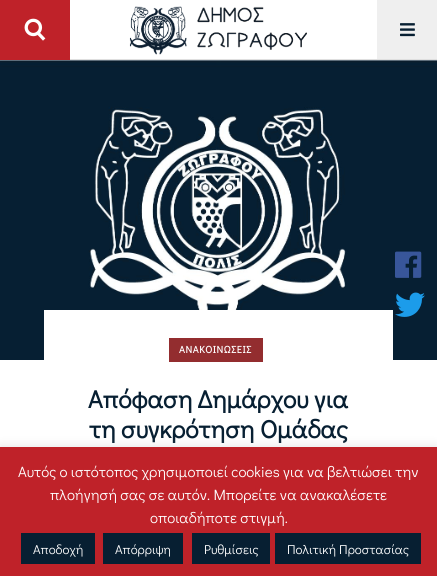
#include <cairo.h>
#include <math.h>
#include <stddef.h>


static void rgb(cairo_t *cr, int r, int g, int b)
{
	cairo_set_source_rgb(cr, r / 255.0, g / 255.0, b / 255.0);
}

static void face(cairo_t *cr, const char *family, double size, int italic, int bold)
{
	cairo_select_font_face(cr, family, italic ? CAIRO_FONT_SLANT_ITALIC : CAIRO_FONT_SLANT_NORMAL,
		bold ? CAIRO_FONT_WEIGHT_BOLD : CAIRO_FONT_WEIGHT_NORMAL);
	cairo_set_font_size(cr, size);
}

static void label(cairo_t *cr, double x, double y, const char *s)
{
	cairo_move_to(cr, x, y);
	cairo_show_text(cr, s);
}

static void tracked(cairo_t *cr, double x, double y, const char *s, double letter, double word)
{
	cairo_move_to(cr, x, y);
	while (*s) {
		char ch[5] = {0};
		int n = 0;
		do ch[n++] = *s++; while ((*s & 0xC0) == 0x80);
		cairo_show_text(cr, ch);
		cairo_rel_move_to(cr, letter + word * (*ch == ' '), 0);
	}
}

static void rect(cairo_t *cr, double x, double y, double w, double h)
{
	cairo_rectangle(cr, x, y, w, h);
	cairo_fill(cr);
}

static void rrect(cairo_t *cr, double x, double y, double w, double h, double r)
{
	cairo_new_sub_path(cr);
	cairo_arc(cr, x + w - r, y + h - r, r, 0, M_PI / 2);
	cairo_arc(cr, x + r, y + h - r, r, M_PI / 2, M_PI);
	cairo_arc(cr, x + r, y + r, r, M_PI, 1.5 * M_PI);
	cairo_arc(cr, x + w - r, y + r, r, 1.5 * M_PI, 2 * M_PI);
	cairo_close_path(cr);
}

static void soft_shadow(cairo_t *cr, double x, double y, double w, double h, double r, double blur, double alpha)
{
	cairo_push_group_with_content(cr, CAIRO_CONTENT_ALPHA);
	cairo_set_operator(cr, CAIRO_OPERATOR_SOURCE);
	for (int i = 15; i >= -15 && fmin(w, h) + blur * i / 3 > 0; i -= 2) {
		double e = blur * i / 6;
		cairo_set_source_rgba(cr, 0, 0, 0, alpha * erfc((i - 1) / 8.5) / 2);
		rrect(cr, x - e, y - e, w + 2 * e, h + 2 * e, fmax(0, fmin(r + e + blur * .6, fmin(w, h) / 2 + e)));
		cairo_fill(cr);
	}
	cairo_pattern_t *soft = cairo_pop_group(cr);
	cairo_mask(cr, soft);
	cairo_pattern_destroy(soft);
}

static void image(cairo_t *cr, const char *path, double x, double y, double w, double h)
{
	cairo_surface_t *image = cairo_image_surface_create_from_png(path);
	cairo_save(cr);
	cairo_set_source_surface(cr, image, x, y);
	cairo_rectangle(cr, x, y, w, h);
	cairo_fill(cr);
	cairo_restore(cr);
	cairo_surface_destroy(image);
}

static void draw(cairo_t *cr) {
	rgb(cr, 255, 255, 255);
	cairo_paint(cr);
	rgb(cr, 191, 34, 41);
	rect(cr, 0, 0, 70, 60);
	image(cr, "image0.png", 24, 18, 22, 23);
	rgb(cr, 223, 223, 223);
	rect(cr, 70, 59, 367, 1);
	image(cr, "image1.png", 129, 6, 178, 49);
	rgb(cr, 239, 239, 239);
	rect(cr, 377, 0, 60, 59);
	image(cr, "image2.png", 400, 23, 15, 14);
	image(cr, "image5.png", 0, 60, 437, 300);
	image(cr, "image3.png", 395, 251, 27, 27);
	image(cr, "image4.png", 395, 292, 30, 25);
	rgb(cr, 255, 255, 255);
	rect(cr, 44, 310, 349, 50);
	rgb(cr, 147, 45, 47);
	rect(cr, 169, 338, 94, 24);
	face(cr, "Didact Gothic", 10, 0, 1);
	rgb(cr, 255, 255, 255);
	tracked(cr, 179, 353, "ΑΝΑΚΟΙΝΩΣΕΙΣ", 0.6, 0);
	face(cr, "Didact Gothic", 25, 0, 1);
	rgb(cr, 7, 31, 50);
	label(cr, 88, 408, "Απόφαση Δημάρχου για");
	label(cr, 89, 438, "τη συγκρότηση Ομάδας");
	rgb(cr, 172, 171, 171);
	soft_shadow(cr, 0, 446, 437, 129, 0, 5, 0.3);
	rgb(cr, 191, 34, 41);
	rect(cr, 0, 447, 437, 129);
	face(cr, "Didact Gothic", 15, 0, 0);
	rgb(cr, 255, 255, 255);
	label(cr, 18, 477, "Αυτός ο ιστότοπος χρησιμοποιεί cookies για να βελτιώσει την");
	label(cr, 50, 500, "πλοήγησή σας σε αυτόν. Μπορείτε να ανακαλέσετε");
	label(cr, 150, 523, "οποιαδήποτε στιγμή.");
	rgb(cr, 7, 31, 50);
	rect(cr, 21, 533, 74, 31);
	face(cr, "Didact Gothic", 13, 0, 0);
	rgb(cr, 255, 255, 255);
	label(cr, 33, 554, "Αποδοχή");
	rgb(cr, 7, 31, 50);
	rect(cr, 103, 533, 80, 31);
	rgb(cr, 255, 255, 255);
	label(cr, 115, 554, "Απόρριψη");
	rgb(cr, 7, 31, 50);
	rect(cr, 192, 533, 78, 31);
	rgb(cr, 255, 255, 255);
	label(cr, 204, 554, "Ρυθμίσεις");
	rgb(cr, 7, 31, 50);
	rect(cr, 275, 533, 146, 31);
	rgb(cr, 255, 255, 255);
	label(cr, 287, 554, "Πολιτική Προστασίας");
}

int main(void) {
	cairo_surface_t *surface = cairo_image_surface_create(CAIRO_FORMAT_RGB24, 437, 576);
	cairo_t *cr = cairo_create(surface);
	cairo_font_options_t *options = cairo_font_options_create();
	cairo_font_options_set_hint_metrics(options, CAIRO_HINT_METRICS_OFF);
	cairo_font_options_set_hint_style(options, CAIRO_HINT_STYLE_NONE);
	cairo_set_font_options(cr, options);
	cairo_set_miter_limit(cr, 4);
	draw(cr);
	cairo_surface_write_to_png(surface, "render.png");
	cairo_font_options_destroy(options);
	cairo_destroy(cr);
	cairo_surface_destroy(surface);
	return 0;
}
